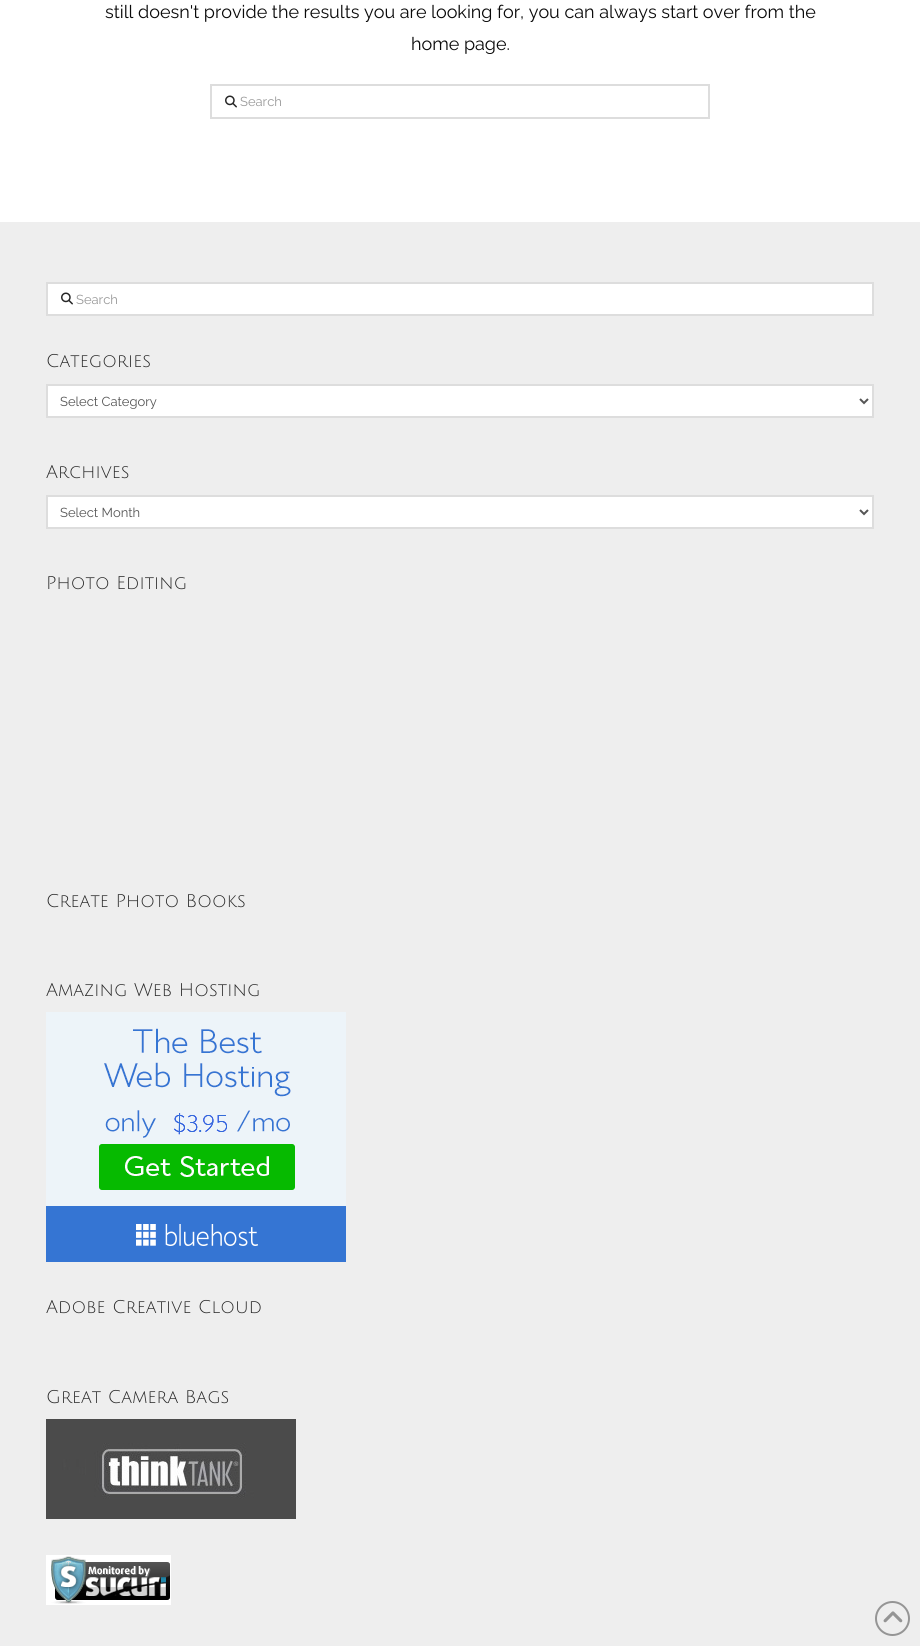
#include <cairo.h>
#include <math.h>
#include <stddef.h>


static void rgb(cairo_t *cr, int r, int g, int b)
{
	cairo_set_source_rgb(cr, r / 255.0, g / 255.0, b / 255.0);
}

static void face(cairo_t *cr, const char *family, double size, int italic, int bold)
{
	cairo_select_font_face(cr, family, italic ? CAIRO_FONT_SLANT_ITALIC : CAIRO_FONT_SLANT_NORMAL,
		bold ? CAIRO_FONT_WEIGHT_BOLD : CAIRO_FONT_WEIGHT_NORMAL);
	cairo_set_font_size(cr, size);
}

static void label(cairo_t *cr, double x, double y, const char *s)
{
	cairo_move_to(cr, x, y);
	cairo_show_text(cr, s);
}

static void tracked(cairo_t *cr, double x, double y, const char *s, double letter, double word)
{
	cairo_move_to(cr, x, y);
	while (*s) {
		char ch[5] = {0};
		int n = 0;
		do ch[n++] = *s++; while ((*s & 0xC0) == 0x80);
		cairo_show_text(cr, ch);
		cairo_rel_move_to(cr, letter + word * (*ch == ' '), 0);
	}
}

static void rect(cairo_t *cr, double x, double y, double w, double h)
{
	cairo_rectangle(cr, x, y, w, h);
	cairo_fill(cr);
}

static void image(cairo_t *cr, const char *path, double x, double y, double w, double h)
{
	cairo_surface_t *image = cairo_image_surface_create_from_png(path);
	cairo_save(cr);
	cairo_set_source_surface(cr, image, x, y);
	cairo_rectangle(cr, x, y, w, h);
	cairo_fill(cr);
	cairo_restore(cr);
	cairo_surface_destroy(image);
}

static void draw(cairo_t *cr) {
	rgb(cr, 255, 255, 255);
	cairo_paint(cr);
	face(cr, "Raleway", 18, 0, 0);
	rgb(cr, 10, 10, 10);
	label(cr, 105, 18, "still doesn't provide the results you are looking for, you can always start over from the");
	label(cr, 411, 50, "home page.");
	cairo_rectangle(cr, 211, 85, 498, 33);
	rgb(cr, 221, 221, 221);
	cairo_stroke(cr);
	image(cr, "image0.png", 225, 95, 12, 13);
	face(cr, "Raleway", 13, 0, 0);
	rgb(cr, 153, 153, 153);
	label(cr, 240, 106, "Search");
	rgb(cr, 238, 238, 238);
	rect(cr, 0, 222, 920, 1424);
	rgb(cr, 255, 255, 255);
	cairo_rectangle(cr, 47, 283, 826, 32);
	cairo_fill_preserve(cr);
	rgb(cr, 221, 221, 221);
	cairo_stroke(cr);
	image(cr, "image0.png", 61, 292, 12, 13);
	rgb(cr, 153, 153, 153);
	label(cr, 76, 304, "Search");
	face(cr, "Julius Sans One", 18, 0, 0);
	rgb(cr, 39, 39, 39);
	tracked(cr, 46, 367, "Categories", 0.1, 0);
	rgb(cr, 255, 255, 255);
	cairo_rectangle(cr, 47, 385, 826, 32);
	cairo_fill_preserve(cr);
	rgb(cr, 221, 221, 221);
	cairo_stroke(cr);
	cairo_new_path(cr);
	cairo_move_to(cr, 860, 399);
	cairo_line_to(cr, 864, 403);
	cairo_line_to(cr, 868, 399);
	rgb(cr, 85, 85, 85);
	cairo_stroke(cr);
	face(cr, "Raleway", 13, 0, 0);
	label(cr, 60, 406, "Select Category");
	face(cr, "Julius Sans One", 18, 0, 0);
	rgb(cr, 39, 39, 39);
	tracked(cr, 46, 478, "Archives", 0.1, 0);
	rgb(cr, 255, 255, 255);
	cairo_rectangle(cr, 47, 496, 826, 32);
	cairo_fill_preserve(cr);
	rgb(cr, 221, 221, 221);
	cairo_stroke(cr);
	cairo_new_path(cr);
	cairo_move_to(cr, 860, 510);
	cairo_line_to(cr, 864, 514);
	cairo_line_to(cr, 868, 510);
	rgb(cr, 85, 85, 85);
	cairo_stroke(cr);
	face(cr, "Raleway", 13, 0, 0);
	label(cr, 60, 517, "Select Month");
	face(cr, "Julius Sans One", 18, 0, 0);
	rgb(cr, 39, 39, 39);
	tracked(cr, 46, 589, "Photo Editing", 0.1, 0);
	tracked(cr, 46, 907, "Create Photo Books", 0.1, 0);
	tracked(cr, 46, 996, "Amazing Web Hosting", 0.1, 0);
	image(cr, "image1.png", 46, 1012, 300, 250);
	tracked(cr, 46, 1313, "Adobe Creative Cloud", 0.1, 0);
	tracked(cr, 46, 1403, "Great Camera Bags", 0.1, 0);
	image(cr, "image2.png", 46, 1419, 250, 100);
	image(cr, "image3.png", 46, 1555, 125, 50);
	cairo_arc(cr, 892.5, 1618.5, 16.5, 0, 2 * M_PI);
	rgb(cr, 149, 149, 149);
	cairo_stroke(cr);
	image(cr, "image4.png", 883, 1611, 20, 12);
}

int main(void) {
	cairo_surface_t *surface = cairo_image_surface_create(CAIRO_FORMAT_RGB24, 920, 1646);
	cairo_t *cr = cairo_create(surface);
	cairo_font_options_t *options = cairo_font_options_create();
	cairo_font_options_set_hint_metrics(options, CAIRO_HINT_METRICS_OFF);
	cairo_font_options_set_hint_style(options, CAIRO_HINT_STYLE_NONE);
	cairo_set_font_options(cr, options);
	cairo_set_miter_limit(cr, 4);
	draw(cr);
	cairo_surface_write_to_png(surface, "render.png");
	cairo_font_options_destroy(options);
	cairo_destroy(cr);
	cairo_surface_destroy(surface);
	return 0;
}
